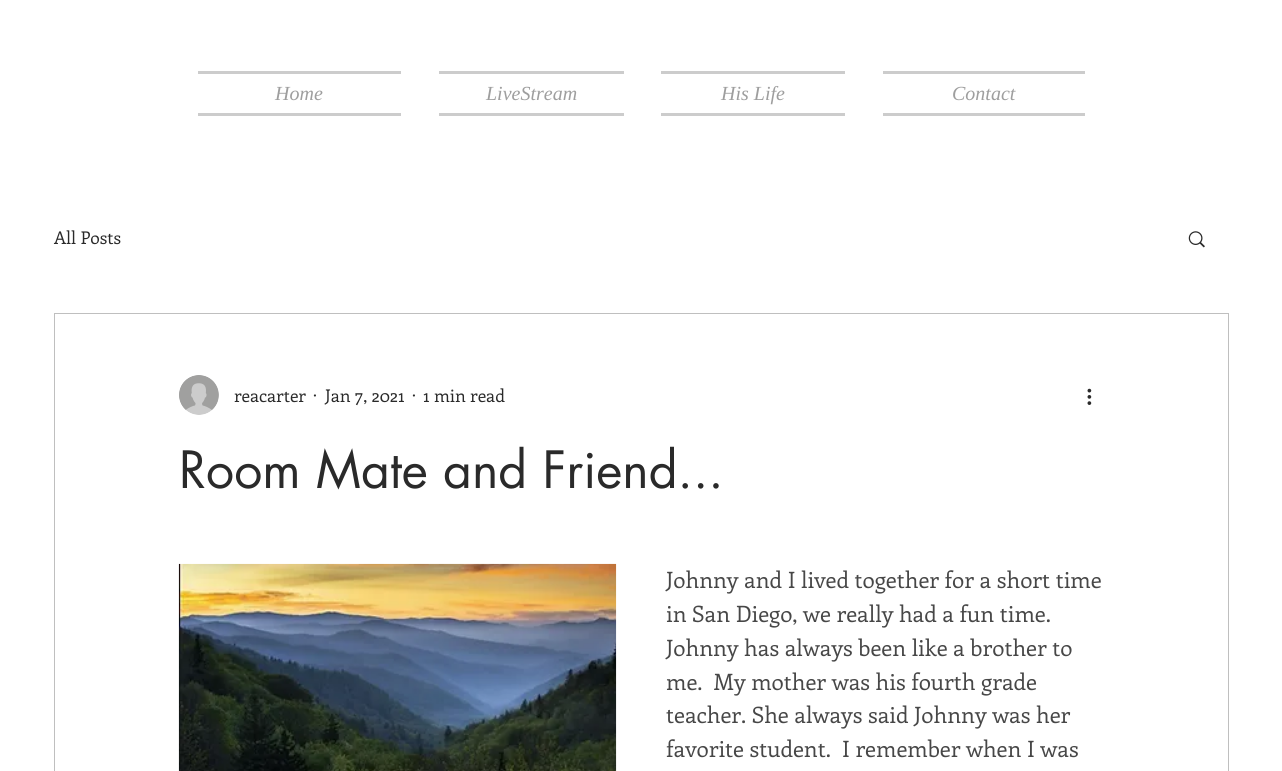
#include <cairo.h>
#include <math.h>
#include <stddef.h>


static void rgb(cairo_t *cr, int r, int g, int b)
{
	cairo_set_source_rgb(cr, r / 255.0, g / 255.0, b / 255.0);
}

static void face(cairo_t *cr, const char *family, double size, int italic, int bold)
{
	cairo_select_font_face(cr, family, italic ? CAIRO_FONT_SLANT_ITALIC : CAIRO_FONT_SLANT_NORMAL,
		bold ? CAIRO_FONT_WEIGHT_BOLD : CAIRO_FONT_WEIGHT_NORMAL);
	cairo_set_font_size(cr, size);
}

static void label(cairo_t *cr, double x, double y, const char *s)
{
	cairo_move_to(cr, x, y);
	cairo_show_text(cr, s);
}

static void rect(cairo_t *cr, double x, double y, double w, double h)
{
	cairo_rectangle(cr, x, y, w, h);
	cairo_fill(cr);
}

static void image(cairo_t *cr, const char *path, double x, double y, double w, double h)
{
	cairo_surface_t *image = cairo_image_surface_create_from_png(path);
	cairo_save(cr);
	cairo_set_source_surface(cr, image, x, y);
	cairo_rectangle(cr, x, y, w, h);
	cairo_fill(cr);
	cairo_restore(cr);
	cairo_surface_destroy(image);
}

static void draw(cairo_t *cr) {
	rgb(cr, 255, 255, 255);
	cairo_paint(cr);
	rgb(cr, 204, 204, 204);
	rect(cr, 198, 71, 203, 3);
	rect(cr, 198, 113, 203, 3);
	face(cr, "Liberation Serif", 20, 1, 0);
	rgb(cr, 158, 158, 158);
	label(cr, 275, 100, "Home");
	rgb(cr, 204, 204, 204);
	rect(cr, 439, 71, 185, 3);
	rect(cr, 439, 113, 185, 3);
	rgb(cr, 158, 158, 158);
	label(cr, 486, 100, "LiveStream");
	rgb(cr, 204, 204, 204);
	rect(cr, 661, 71, 184, 3);
	rect(cr, 661, 113, 184, 3);
	rgb(cr, 158, 158, 158);
	label(cr, 721, 100, "His Life");
	rgb(cr, 204, 204, 204);
	rect(cr, 883, 71, 202, 3);
	rect(cr, 883, 113, 202, 3);
	rgb(cr, 158, 158, 158);
	label(cr, 952, 100, "Contact");
	face(cr, "Enriqueta", 17.5, 0, 0);
	rgb(cr, 42, 42, 42);
	label(cr, 54, 244, "All Posts");
	image(cr, "image0.png", 1188, 231, 17, 17);
	cairo_rectangle(cr, 54.5, 313.5, 1174, 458);
	rgb(cr, 191, 191, 191);
	cairo_set_line_width(cr, 1);
	cairo_stroke(cr);
	image(cr, "image1.png", 179, 375, 40, 40);
	rgb(cr, 42, 42, 42);
	label(cr, 234, 402, "reacarter");
	label(cr, 313, 402, "·");
	label(cr, 325, 402, "Jan 7, 2021");
	label(cr, 412, 402, "·");
	label(cr, 423, 402, "1 min read");
	image(cr, "image2.png", 1087, 388, 5, 17);
	face(cr, "futura", 50, 0, 0);
	label(cr, 179, 488, "Room Mate and Friend...");
	image(cr, "image3.png", 178, 563, 439, 208);
	face(cr, "Enriqueta", 22.5, 0, 0);
	rgb(cr, 71, 71, 71);
	label(cr, 666, 588, "Johnny and I lived together for a short time");
	label(cr, 666, 622, "in San Diego, we really had a fun time.");
	label(cr, 666, 656, "Johnny has always been like a brother to");
	label(cr, 666, 690, "me.  My mother was his fourth grade");
	label(cr, 666, 723, "teacher. She always said Johnny was her");
	label(cr, 666, 757, "favorite student.  I remember when I was");
}

int main(void) {
	cairo_surface_t *surface = cairo_image_surface_create(CAIRO_FORMAT_RGB24, 1282, 771);
	cairo_t *cr = cairo_create(surface);
	cairo_font_options_t *options = cairo_font_options_create();
	cairo_font_options_set_hint_metrics(options, CAIRO_HINT_METRICS_OFF);
	cairo_font_options_set_hint_style(options, CAIRO_HINT_STYLE_NONE);
	cairo_set_font_options(cr, options);
	cairo_set_miter_limit(cr, 4);
	draw(cr);
	cairo_surface_write_to_png(surface, "render.png");
	cairo_font_options_destroy(options);
	cairo_destroy(cr);
	cairo_surface_destroy(surface);
	return 0;
}
